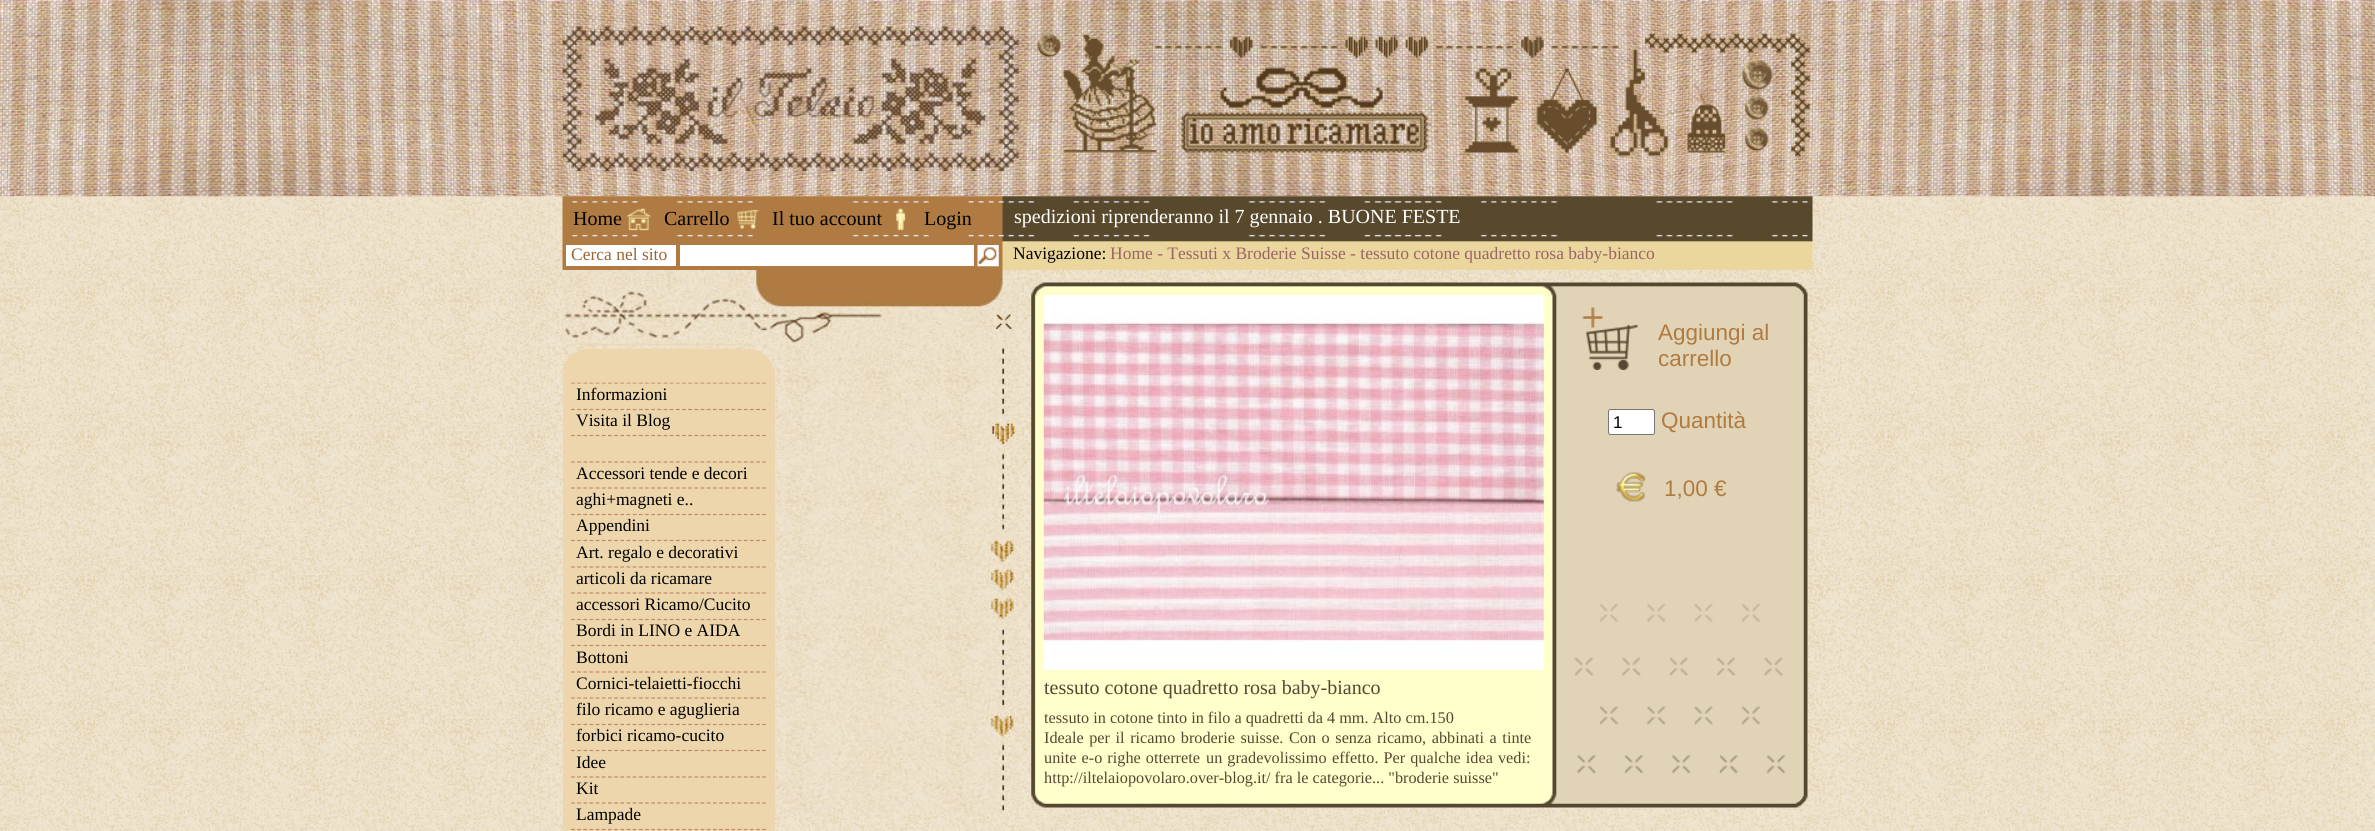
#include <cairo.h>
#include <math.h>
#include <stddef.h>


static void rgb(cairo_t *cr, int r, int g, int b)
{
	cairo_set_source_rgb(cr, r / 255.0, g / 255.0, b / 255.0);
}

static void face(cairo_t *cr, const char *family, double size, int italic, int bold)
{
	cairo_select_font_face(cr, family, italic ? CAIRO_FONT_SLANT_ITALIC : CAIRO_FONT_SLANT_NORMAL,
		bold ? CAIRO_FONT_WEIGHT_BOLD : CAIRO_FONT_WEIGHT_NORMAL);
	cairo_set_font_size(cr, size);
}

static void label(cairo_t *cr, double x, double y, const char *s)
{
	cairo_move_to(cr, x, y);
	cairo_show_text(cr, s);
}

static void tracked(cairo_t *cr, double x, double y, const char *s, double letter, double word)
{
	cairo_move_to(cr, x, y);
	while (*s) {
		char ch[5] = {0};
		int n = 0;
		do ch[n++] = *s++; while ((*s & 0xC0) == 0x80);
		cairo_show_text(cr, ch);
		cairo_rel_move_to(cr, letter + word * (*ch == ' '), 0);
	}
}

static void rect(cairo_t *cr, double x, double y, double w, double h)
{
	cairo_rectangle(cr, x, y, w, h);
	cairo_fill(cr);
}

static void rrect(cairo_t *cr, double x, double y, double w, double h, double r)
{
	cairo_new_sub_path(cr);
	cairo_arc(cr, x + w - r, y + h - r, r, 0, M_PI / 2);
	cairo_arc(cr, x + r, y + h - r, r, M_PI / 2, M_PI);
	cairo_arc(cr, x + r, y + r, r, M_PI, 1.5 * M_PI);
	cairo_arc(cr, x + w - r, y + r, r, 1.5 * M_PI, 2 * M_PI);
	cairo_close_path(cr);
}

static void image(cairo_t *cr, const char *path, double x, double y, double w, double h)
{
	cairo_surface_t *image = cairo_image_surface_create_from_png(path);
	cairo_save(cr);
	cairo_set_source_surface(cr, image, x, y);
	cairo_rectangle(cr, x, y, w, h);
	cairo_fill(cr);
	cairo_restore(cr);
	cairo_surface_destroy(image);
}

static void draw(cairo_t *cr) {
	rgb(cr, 255, 255, 255);
	cairo_paint(cr);
	image(cr, "image0.png", 0, 196, 2375, 635);
	image(cr, "image1.png", 0, 0, 2375, 197);
	image(cr, "image2.png", 562, 26, 457, 146);
	image(cr, "image3.png", 1037, 33, 774, 124);
	image(cr, "image4.png", 562, 196, 1251, 74);
	image(cr, "image5.png", 626, 208, 26, 23);
	face(cr, "Liberation Serif", 20, 0, 0);
	rgb(cr, 0, 0, 0);
	label(cr, 573, 225, "Home");
	image(cr, "image6.png", 737, 209, 22, 20);
	label(cr, 664, 225, "Carrello");
	image(cr, "image7.png", 896, 208, 10, 23);
	label(cr, 772, 225, "Il tuo account");
	label(cr, 924, 225, "Login");
	rgb(cr, 255, 255, 255);
	label(cr, 1014, 223, "spedizioni riprenderanno il 7 gennaio . BUONE FESTE");
	rect(cr, 566, 245, 110, 21);
	face(cr, "Liberation Serif", 17.5, 0, 0);
	rgb(cr, 153, 101, 51);
	label(cr, 571, 260, "Cerca nel sito");
	rgb(cr, 255, 255, 255);
	rect(cr, 680, 245, 294, 21);
	image(cr, "image8.png", 977, 245, 22, 22);
	rgb(cr, 0, 0, 0);
	label(cr, 1013, 259, "Navigazione:");
	rgb(cr, 153, 101, 101);
	label(cr, 1110, 259, "Home - Tessuti x Broderie Suisse - tessuto cotone quadretto rosa baby-bianco");
	image(cr, "image9.png", 562, 270, 457, 543);
	rgb(cr, 237, 214, 171);
	rect(cr, 563, 382, 212, 449);
	cairo_new_path(cr);
	cairo_move_to(cr, 571, 383);
	cairo_line_to(cr, 766, 383);
	rgb(cr, 198, 135, 108);
	cairo_set_line_width(cr, 1.2);
	cairo_set_dash(cr, (double[]){3.75, 2.42}, 2, 0);
	cairo_stroke(cr);
	image(cr, "image10.png", 562, 348, 213, 35);
	cairo_new_path(cr);
	cairo_move_to(cr, 571, 409.5);
	cairo_line_to(cr, 766, 409.5);
	cairo_stroke(cr);
	rgb(cr, 0, 0, 0);
	label(cr, 576, 400, "Informazioni");
	cairo_new_path(cr);
	cairo_move_to(cr, 571, 435.5);
	cairo_line_to(cr, 766, 435.5);
	rgb(cr, 198, 135, 108);
	cairo_stroke(cr);
	rgb(cr, 0, 0, 0);
	label(cr, 576, 426, "Visita il Blog");
	cairo_new_path(cr);
	cairo_move_to(cr, 571, 462);
	cairo_line_to(cr, 766, 462);
	rgb(cr, 198, 135, 108);
	cairo_stroke(cr);
	cairo_new_path(cr);
	cairo_move_to(cr, 571, 488);
	cairo_line_to(cr, 766, 488);
	cairo_stroke(cr);
	rgb(cr, 0, 0, 0);
	label(cr, 576, 479, "Accessori tende e decori");
	cairo_new_path(cr);
	cairo_move_to(cr, 571, 514.5);
	cairo_line_to(cr, 766, 514.5);
	rgb(cr, 198, 135, 108);
	cairo_stroke(cr);
	rgb(cr, 0, 0, 0);
	label(cr, 576, 505, "aghi+magneti e..");
	cairo_new_path(cr);
	cairo_move_to(cr, 571, 540.5);
	cairo_line_to(cr, 766, 540.5);
	rgb(cr, 198, 135, 108);
	cairo_stroke(cr);
	rgb(cr, 0, 0, 0);
	label(cr, 576, 531, "Appendini");
	cairo_new_path(cr);
	cairo_move_to(cr, 571, 567);
	cairo_line_to(cr, 766, 567);
	rgb(cr, 198, 135, 108);
	cairo_stroke(cr);
	rgb(cr, 0, 0, 0);
	label(cr, 576, 558, "Art. regalo e decorativi");
	cairo_new_path(cr);
	cairo_move_to(cr, 571, 593);
	cairo_line_to(cr, 766, 593);
	rgb(cr, 198, 135, 108);
	cairo_stroke(cr);
	rgb(cr, 0, 0, 0);
	label(cr, 576, 584, "articoli da ricamare");
	cairo_new_path(cr);
	cairo_move_to(cr, 571, 619.5);
	cairo_line_to(cr, 766, 619.5);
	rgb(cr, 198, 135, 108);
	cairo_stroke(cr);
	rgb(cr, 0, 0, 0);
	label(cr, 576, 610, "accessori Ricamo/Cucito");
	cairo_new_path(cr);
	cairo_move_to(cr, 571, 645.5);
	cairo_line_to(cr, 766, 645.5);
	rgb(cr, 198, 135, 108);
	cairo_stroke(cr);
	rgb(cr, 0, 0, 0);
	label(cr, 576, 636, "Bordi in LINO e AIDA");
	cairo_new_path(cr);
	cairo_move_to(cr, 571, 672);
	cairo_line_to(cr, 766, 672);
	rgb(cr, 198, 135, 108);
	cairo_stroke(cr);
	rgb(cr, 0, 0, 0);
	label(cr, 576, 663, "Bottoni");
	cairo_new_path(cr);
	cairo_move_to(cr, 571, 698);
	cairo_line_to(cr, 766, 698);
	rgb(cr, 198, 135, 108);
	cairo_stroke(cr);
	rgb(cr, 0, 0, 0);
	label(cr, 576, 689, "Cornici-telaietti-fiocchi");
	cairo_new_path(cr);
	cairo_move_to(cr, 571, 724.5);
	cairo_line_to(cr, 766, 724.5);
	rgb(cr, 198, 135, 108);
	cairo_stroke(cr);
	rgb(cr, 0, 0, 0);
	label(cr, 576, 715, "filo ricamo e aguglieria");
	cairo_new_path(cr);
	cairo_move_to(cr, 571, 750.5);
	cairo_line_to(cr, 766, 750.5);
	rgb(cr, 198, 135, 108);
	cairo_stroke(cr);
	rgb(cr, 0, 0, 0);
	label(cr, 576, 741, "forbici ricamo-cucito");
	cairo_new_path(cr);
	cairo_move_to(cr, 571, 777);
	cairo_line_to(cr, 766, 777);
	rgb(cr, 198, 135, 108);
	cairo_stroke(cr);
	rgb(cr, 0, 0, 0);
	label(cr, 576, 768, "Idee");
	cairo_new_path(cr);
	cairo_move_to(cr, 571, 803);
	cairo_line_to(cr, 766, 803);
	rgb(cr, 198, 135, 108);
	cairo_stroke(cr);
	rgb(cr, 0, 0, 0);
	label(cr, 576, 794, "Kit");
	cairo_new_path(cr);
	cairo_move_to(cr, 571, 829.5);
	cairo_line_to(cr, 766, 829.5);
	rgb(cr, 198, 135, 108);
	cairo_stroke(cr);
	rgb(cr, 0, 0, 0);
	label(cr, 576, 820, "Lampade");
	image(cr, "image11.png", 1031, 282, 777, 526);
	image(cr, "image12.png", 1043, 295, 501, 375);
	image(cr, "image13.png", 1582, 307, 57, 63);
	face(cr, "Liberation Sans", 22.5, 0, 0);
	rgb(cr, 175, 123, 65);
	label(cr, 1658, 340, "Aggiungi al");
	label(cr, 1658, 366, "carrello");
	rgb(cr, 255, 255, 255);
	rrect(cr, 1608.5, 409.5, 46, 25, 2);
	cairo_fill_preserve(cr);
	rgb(cr, 118, 118, 118);
	cairo_set_line_width(cr, 1);
	cairo_set_dash(cr, NULL, 0, 0);
	cairo_stroke(cr);
	face(cr, "Liberation Sans", 17, 0, 0);
	rgb(cr, 0, 0, 0);
	label(cr, 1613, 428, "1");
	face(cr, "Liberation Sans", 22.5, 0, 0);
	rgb(cr, 175, 123, 65);
	label(cr, 1661, 428, "Quantità");
	image(cr, "image14.png", 1616, 472, 30, 30);
	label(cr, 1664, 496, "1,00 €");
	face(cr, "Liberation Serif", 20, 0, 0);
	rgb(cr, 85, 71, 49);
	label(cr, 1044, 694, "tessuto cotone quadretto rosa baby-bianco");
	face(cr, "Liberation Serif", 16.25, 0, 0);
	label(cr, 1044, 723, "tessuto in cotone tinto in filo a quadretti da 4 mm. Alto cm.150");
	tracked(cr, 1044, 743, "Ideale per il ricamo broderie suisse. Con o senza ricamo, abbinati a tinte", 0, 1.5);
	tracked(cr, 1044, 763, "unite e-o righe otterrete", 0, 1);
	tracked(cr, 1206, 763, "un gradevolissimo", 0, 1);
	tracked(cr, 1332, 763, "effetto. Per qualche idea vedi:", 0, 1);
	label(cr, 1044, 783, "http://iltelaiopovolaro.over-blog.it/ fra le categorie... \"broderie suisse\"");
}

int main(void) {
	cairo_surface_t *surface = cairo_image_surface_create(CAIRO_FORMAT_RGB24, 2375, 831);
	cairo_t *cr = cairo_create(surface);
	cairo_font_options_t *options = cairo_font_options_create();
	cairo_font_options_set_hint_metrics(options, CAIRO_HINT_METRICS_OFF);
	cairo_font_options_set_hint_style(options, CAIRO_HINT_STYLE_NONE);
	cairo_set_font_options(cr, options);
	cairo_set_miter_limit(cr, 4);
	draw(cr);
	cairo_surface_write_to_png(surface, "render.png");
	cairo_font_options_destroy(options);
	cairo_destroy(cr);
	cairo_surface_destroy(surface);
	return 0;
}
